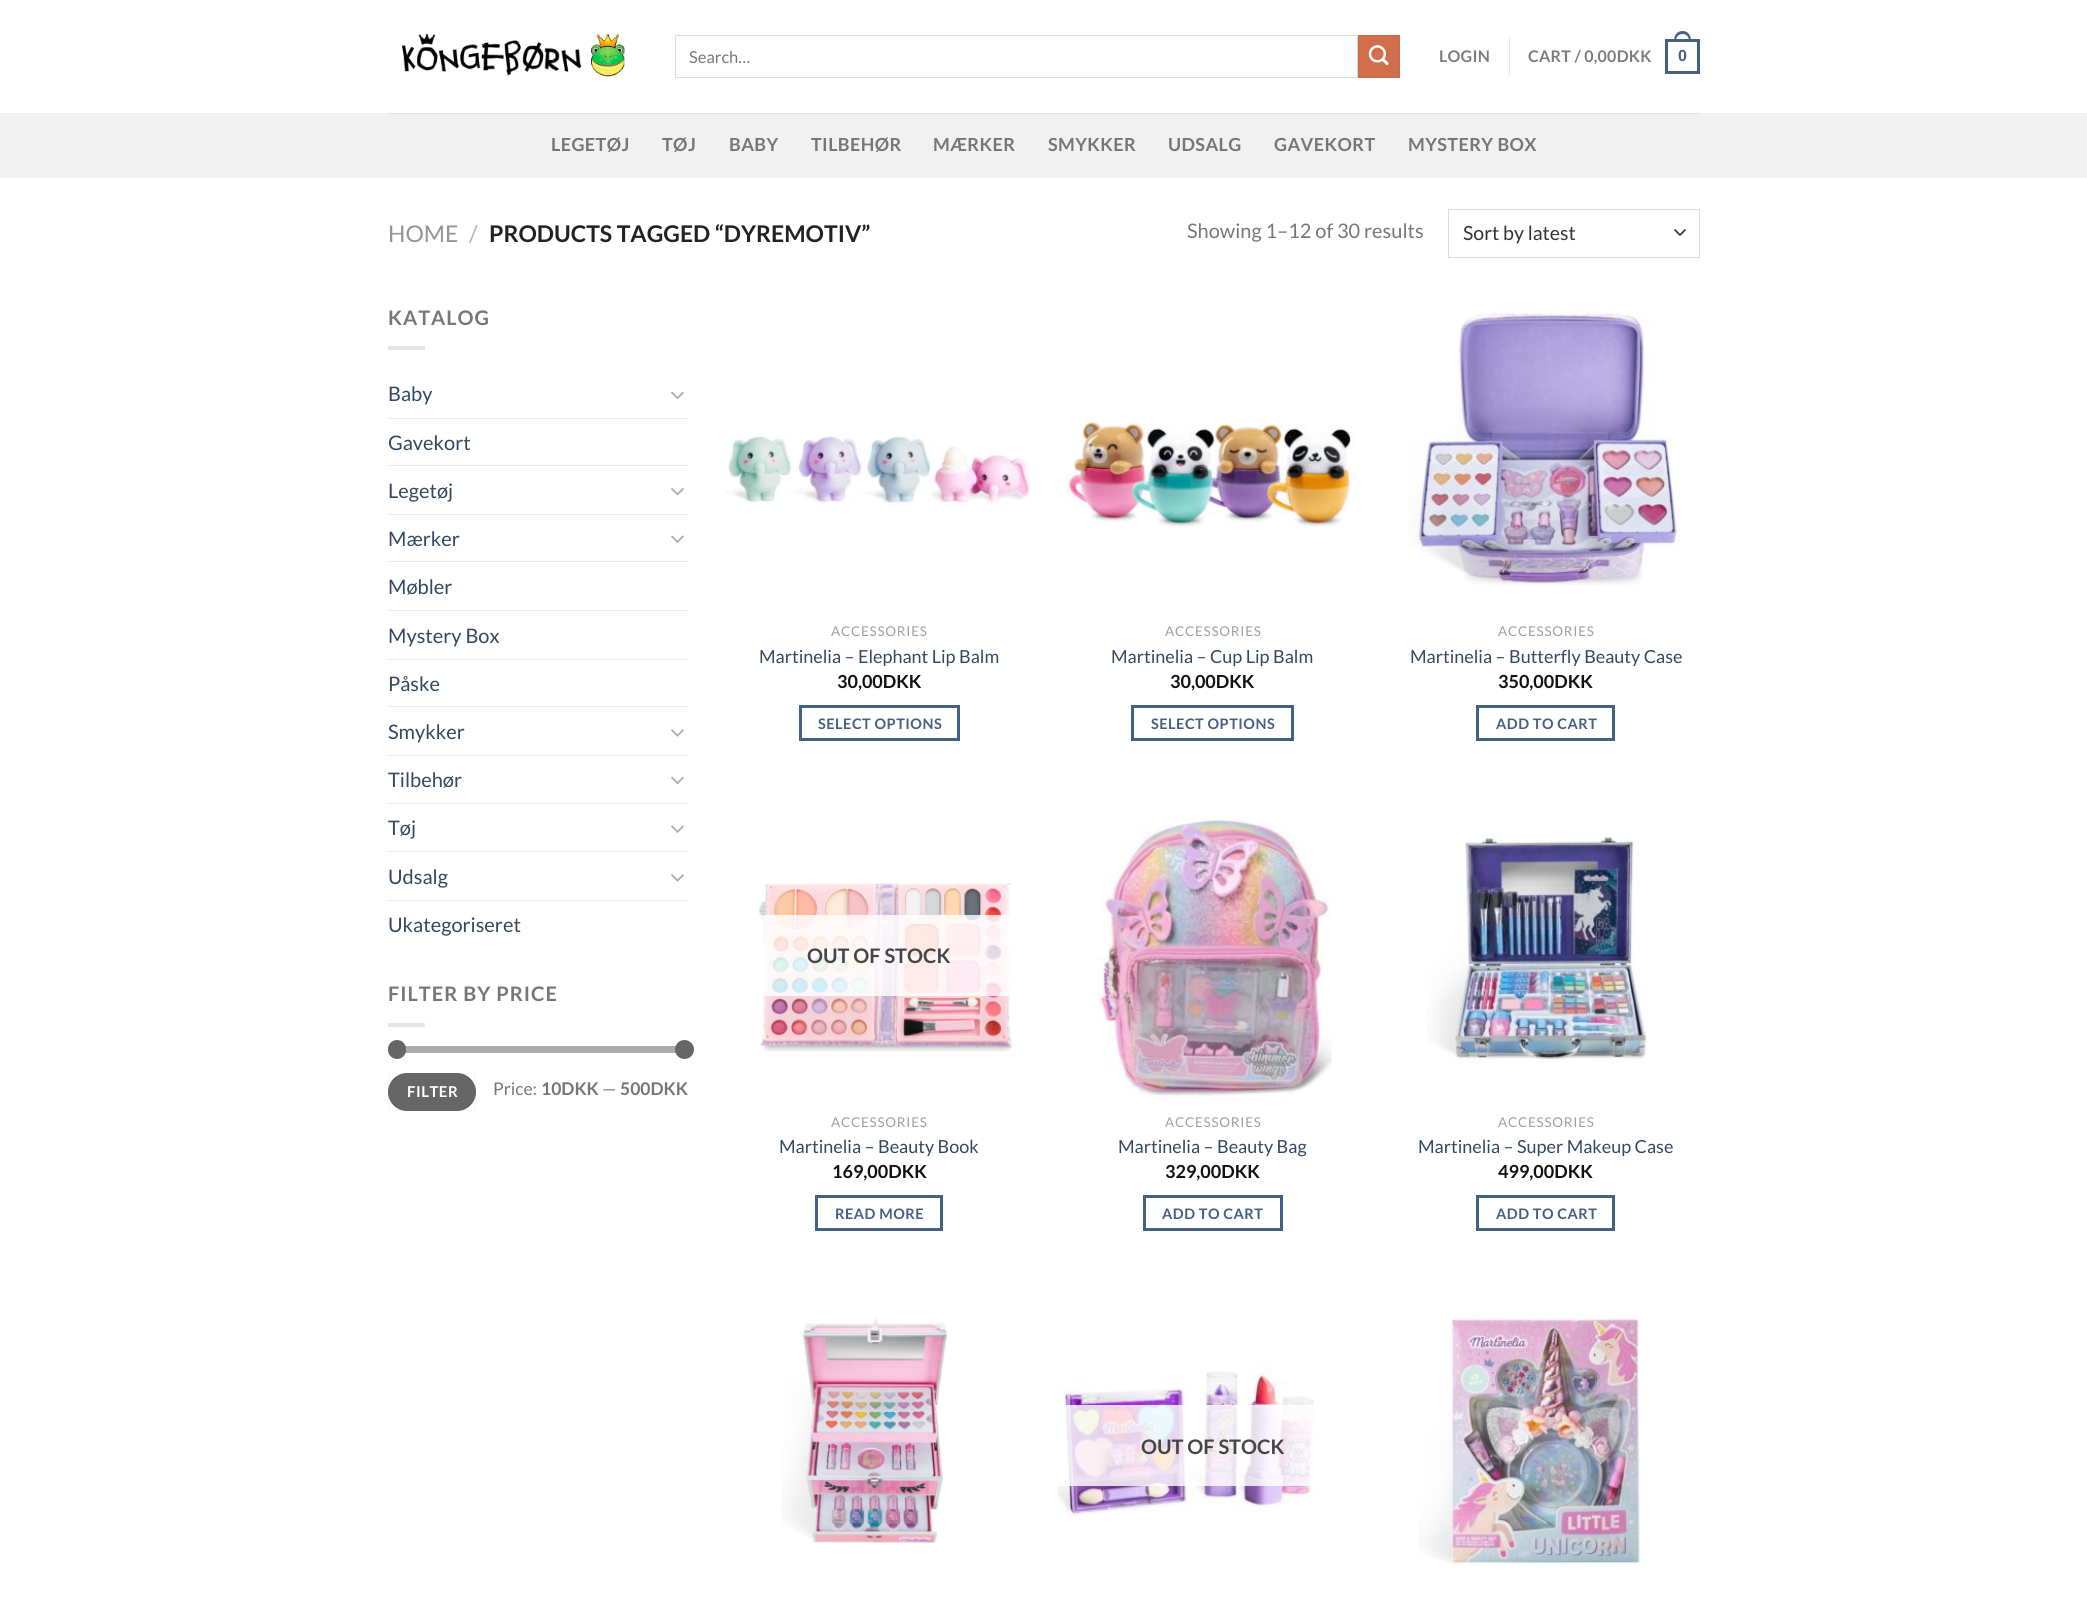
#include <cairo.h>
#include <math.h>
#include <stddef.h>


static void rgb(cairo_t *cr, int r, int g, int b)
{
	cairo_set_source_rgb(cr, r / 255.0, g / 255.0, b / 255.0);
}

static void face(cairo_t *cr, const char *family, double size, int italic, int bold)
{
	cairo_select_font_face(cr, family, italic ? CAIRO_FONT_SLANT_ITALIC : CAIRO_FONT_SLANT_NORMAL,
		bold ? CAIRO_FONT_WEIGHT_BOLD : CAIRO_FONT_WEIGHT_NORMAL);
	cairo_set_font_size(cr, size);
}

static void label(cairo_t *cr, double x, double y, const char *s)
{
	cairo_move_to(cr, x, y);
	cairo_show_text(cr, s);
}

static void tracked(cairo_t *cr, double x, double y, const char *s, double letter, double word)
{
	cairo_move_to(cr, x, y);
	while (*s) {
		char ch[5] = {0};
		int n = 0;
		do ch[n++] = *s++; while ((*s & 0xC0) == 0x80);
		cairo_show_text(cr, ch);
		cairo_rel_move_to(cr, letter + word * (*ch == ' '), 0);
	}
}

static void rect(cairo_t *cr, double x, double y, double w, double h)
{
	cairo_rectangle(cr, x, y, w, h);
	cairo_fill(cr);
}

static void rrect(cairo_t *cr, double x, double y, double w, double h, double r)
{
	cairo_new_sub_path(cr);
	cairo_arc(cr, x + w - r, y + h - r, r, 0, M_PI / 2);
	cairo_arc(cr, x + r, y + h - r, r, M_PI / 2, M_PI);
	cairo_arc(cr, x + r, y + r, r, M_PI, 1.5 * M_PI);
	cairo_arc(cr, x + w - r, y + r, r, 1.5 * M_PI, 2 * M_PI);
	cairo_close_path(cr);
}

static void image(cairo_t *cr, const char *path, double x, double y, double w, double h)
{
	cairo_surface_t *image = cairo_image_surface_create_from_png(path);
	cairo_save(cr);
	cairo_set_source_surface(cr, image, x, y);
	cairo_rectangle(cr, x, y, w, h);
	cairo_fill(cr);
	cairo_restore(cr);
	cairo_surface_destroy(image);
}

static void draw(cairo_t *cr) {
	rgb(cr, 255, 255, 255);
	cairo_paint(cr);
	image(cr, "image0.png", 401, 33, 224, 44);
	cairo_rectangle(cr, 675.5, 35.5, 682, 42);
	rgb(cr, 221, 221, 221);
	cairo_set_line_width(cr, 1);
	cairo_stroke(cr);
	face(cr, "Lato", 16.5, 0, 0);
	rgb(cr, 119, 119, 119);
	label(cr, 689, 63, "Search…");
	rgb(cr, 210, 110, 75);
	cairo_rectangle(cr, 1358.5, 35.5, 41, 42);
	cairo_fill_preserve(cr);
	rgb(cr, 200, 105, 71);
	cairo_stroke(cr);
	image(cr, "image1.png", 1368, 45, 21, 20);
	face(cr, "Lato", 16, 0, 1);
	rgb(cr, 125, 125, 125);
	tracked(cr, 1439, 62, "LOGIN", 0.25, 0);
	rgb(cr, 230, 230, 230);
	rect(cr, 1509, 38, 1, 37);
	rgb(cr, 125, 125, 125);
	tracked(cr, 1528, 62, "CART / 0,00DKK", 0.25, 0);
	cairo_rectangle(cr, 1666.5, 40.5, 32, 32);
	rgb(cr, 68, 96, 132);
	cairo_set_line_width(cr, 3);
	cairo_stroke(cr);
	cairo_set_fill_rule(cr, CAIRO_FILL_RULE_EVEN_ODD);
	cairo_new_path(cr);
	cairo_move_to(cr, 1682.5, 31);
	cairo_curve_to(cr, 1688.5, 31, 1691, 36, 1691, 41);
	cairo_line_to(cr, 1674, 41);
	cairo_curve_to(cr, 1674, 36, 1676.5, 31, 1682.5, 31);
	cairo_close_path(cr);
	cairo_move_to(cr, 1682.5, 34);
	cairo_curve_to(cr, 1687, 34, 1689, 37.5, 1689, 41);
	cairo_line_to(cr, 1676, 41);
	cairo_curve_to(cr, 1676, 37.5, 1678, 34, 1682.5, 34);
	cairo_close_path(cr);
	cairo_fill(cr);
	face(cr, "Liberation Sans", 16, 0, 1);
	tracked(cr, 1678, 61, "0", 0.25, 0);
	rgb(cr, 241, 241, 241);
	rect(cr, 0, 113, 2087, 65);
	rgb(cr, 229, 229, 229);
	rect(cr, 388, 113, 1312, 1);
	face(cr, "Lato", 18, 0, 1);
	rgb(cr, 119, 119, 119);
	tracked(cr, 551, 151, "LEGETØJ", 0.4, 0);
	tracked(cr, 662, 151, "TØJ", 0.4, 0);
	tracked(cr, 729, 151, "BABY", 0.4, 0);
	tracked(cr, 811, 151, "TILBEHØR", 0.4, 0);
	tracked(cr, 933, 151, "MÆRKER", 0.4, 0);
	tracked(cr, 1048, 151, "SMYKKER", 0.4, 0);
	tracked(cr, 1168, 151, "UDSALG", 0.4, 0);
	tracked(cr, 1274, 151, "GAVEKORT", 0.4, 0);
	tracked(cr, 1408, 151, "MYSTERY BOX", 0.4, 0);
	face(cr, "Lato", 23, 0, 0);
	rgb(cr, 148, 148, 148);
	label(cr, 388, 242, "HOME");
	rgb(cr, 178, 178, 178);
	label(cr, 469, 242, "/");
	face(cr, "Lato", 23, 0, 1);
	rgb(cr, 34, 34, 34);
	label(cr, 489, 242, "PRODUCTS TAGGED “DYREMOTIV”");
	face(cr, "Lato", 20, 0, 0);
	rgb(cr, 119, 119, 119);
	label(cr, 1187, 238, "Showing 1–12 of 30 results");
	cairo_new_path(cr);
	cairo_move_to(cr, 1675, 230);
	cairo_line_to(cr, 1680, 235);
	cairo_line_to(cr, 1685, 230);
	rgb(cr, 51, 51, 51);
	cairo_set_line_width(cr, 1.7);
	cairo_set_line_cap(cr, CAIRO_LINE_CAP_ROUND);
	cairo_set_line_join(cr, CAIRO_LINE_JOIN_ROUND);
	cairo_stroke(cr);
	cairo_rectangle(cr, 1448.5, 209.5, 251, 48);
	rgb(cr, 221, 221, 221);
	cairo_set_line_width(cr, 1);
	cairo_set_line_cap(cr, CAIRO_LINE_CAP_BUTT);
	cairo_set_line_join(cr, CAIRO_LINE_JOIN_MITER);
	cairo_stroke(cr);
	face(cr, "Lato", 19.5, 0, 0);
	rgb(cr, 51, 51, 51);
	label(cr, 1463, 240, "Sort by latest");
	face(cr, "Lato", 20, 0, 1);
	rgb(cr, 119, 119, 119);
	tracked(cr, 388, 325, "KATALOG", 1, 0);
	rgb(cr, 230, 230, 230);
	rect(cr, 388, 346, 37, 4);
	face(cr, "Lato", 20, 0, 0);
	rgb(cr, 51, 72, 98);
	label(cr, 388, 401, "Baby");
	image(cr, "image2.png", 671, 391, 13, 9);
	rgb(cr, 236, 236, 236);
	rect(cr, 388, 418, 300, 1);
	rgb(cr, 51, 72, 98);
	label(cr, 388, 450, "Gavekort");
	rgb(cr, 236, 236, 236);
	rect(cr, 388, 465, 300, 1);
	rgb(cr, 51, 72, 98);
	label(cr, 388, 498, "Legetøj");
	image(cr, "image3.png", 671, 488, 13, 8);
	rgb(cr, 236, 236, 236);
	rect(cr, 388, 514, 300, 1);
	rgb(cr, 51, 72, 98);
	label(cr, 388, 546, "Mærker");
	image(cr, "image4.png", 671, 535, 13, 8);
	rgb(cr, 236, 236, 236);
	rect(cr, 388, 561, 300, 1);
	rgb(cr, 51, 72, 98);
	label(cr, 388, 594, "Møbler");
	rgb(cr, 236, 236, 236);
	rect(cr, 388, 610, 300, 1);
	rgb(cr, 51, 72, 98);
	label(cr, 388, 643, "Mystery Box");
	rgb(cr, 236, 236, 236);
	rect(cr, 388, 659, 300, 1);
	rgb(cr, 51, 72, 98);
	label(cr, 388, 691, "Påske");
	rgb(cr, 236, 236, 236);
	rect(cr, 388, 706, 300, 1);
	rgb(cr, 51, 72, 98);
	label(cr, 388, 739, "Smykker");
	image(cr, "image5.png", 671, 729, 13, 8);
	rgb(cr, 236, 236, 236);
	rect(cr, 388, 755, 300, 1);
	rgb(cr, 51, 72, 98);
	label(cr, 388, 787, "Tilbehør");
	image(cr, "image2.png", 671, 776, 13, 9);
	rgb(cr, 236, 236, 236);
	rect(cr, 388, 803, 300, 1);
	rgb(cr, 51, 72, 98);
	label(cr, 388, 835, "Tøj");
	image(cr, "image4.png", 671, 825, 13, 8);
	rgb(cr, 236, 236, 236);
	rect(cr, 388, 851, 300, 1);
	rgb(cr, 51, 72, 98);
	label(cr, 388, 884, "Udsalg");
	image(cr, "image5.png", 671, 874, 13, 8);
	rgb(cr, 236, 236, 236);
	rect(cr, 388, 900, 300, 1);
	rgb(cr, 51, 72, 98);
	label(cr, 388, 932, "Ukategoriseret");
	face(cr, "Lato", 20, 0, 1);
	rgb(cr, 119, 119, 119);
	tracked(cr, 388, 1001, "FILTER BY PRICE", 1, 0);
	rgb(cr, 230, 230, 230);
	rect(cr, 388, 1023, 37, 4);
	rgb(cr, 241, 241, 241);
	rrect(cr, 388, 1046, 300, 7, 3.5);
	cairo_fill(cr);
	cairo_set_source_rgba(cr, 0.4, 0.4, 0.4, 0.5);
	rrect(cr, 388, 1046, 300, 7, 3.5);
	cairo_fill(cr);
	rgb(cr, 102, 102, 102);
	rrect(cr, 388, 1040, 18, 19, 9);
	cairo_fill(cr);
	cairo_arc(cr, 684.5, 1049.5, 9.5, 0, 2 * M_PI);
	cairo_fill(cr);
	rrect(cr, 388, 1073, 88, 38, 19);
	cairo_fill(cr);
	cairo_rectangle(cr, 388.5, 1073.5, 87, 37);
	cairo_set_source_rgba(cr, 0, 0, 0, 0.05);
	cairo_stroke(cr);
	face(cr, "Lato", 15, 0, 1);
	rgb(cr, 255, 255, 255);
	tracked(cr, 407, 1097, "FILTER", 0.5, 0);
	face(cr, "Lato", 17.5, 0, 0);
	rgb(cr, 119, 119, 119);
	label(cr, 493, 1095, "Price:");
	face(cr, "Lato", 17.5, 0, 1);
	label(cr, 541, 1095, "10DKK");
	face(cr, "Lato", 17.5, 0, 0);
	label(cr, 602, 1095, "—");
	face(cr, "Lato", 17.5, 0, 1);
	label(cr, 620, 1095, "500DKK");
	image(cr, "image6.png", 725, 433, 306, 74);
	face(cr, "Lato", 13.5, 0, 0);
	rgb(cr, 160, 160, 160);
	tracked(cr, 831, 636, "ACCESSORIES", 0.75, 0);
	face(cr, "Lato", 18, 0, 0);
	rgb(cr, 51, 72, 98);
	label(cr, 759, 663, "Martinelia – Elephant Lip Balm");
	face(cr, "Lato", 18, 0, 1);
	rgb(cr, 17, 17, 17);
	label(cr, 837, 688, "30,00DKK");
	cairo_rectangle(cr, 800.5, 706.5, 158, 33);
	rgb(cr, 68, 96, 132);
	cairo_set_line_width(cr, 3);
	cairo_stroke(cr);
	face(cr, "Lato", 14.5, 0, 1);
	tracked(cr, 818, 729, "SELECT OPTIONS", 0.5, 0);
	image(cr, "image7.png", 1066, 417, 289, 110);
	face(cr, "Lato", 13.5, 0, 0);
	rgb(cr, 160, 160, 160);
	tracked(cr, 1165, 636, "ACCESSORIES", 0.75, 0);
	face(cr, "Lato", 18, 0, 0);
	rgb(cr, 51, 72, 98);
	label(cr, 1111, 663, "Martinelia – Cup Lip Balm");
	face(cr, "Lato", 18, 0, 1);
	rgb(cr, 17, 17, 17);
	label(cr, 1170, 688, "30,00DKK");
	cairo_rectangle(cr, 1132.5, 706.5, 160, 33);
	rgb(cr, 68, 96, 132);
	cairo_stroke(cr);
	face(cr, "Lato", 14.5, 0, 1);
	tracked(cr, 1151, 729, "SELECT OPTIONS", 0.5, 0);
	image(cr, "image8.png", 1407, 309, 273, 277);
	face(cr, "Lato", 13.5, 0, 0);
	rgb(cr, 160, 160, 160);
	tracked(cr, 1498, 636, "ACCESSORIES", 0.75, 0);
	face(cr, "Lato", 18, 0, 0);
	rgb(cr, 51, 72, 98);
	label(cr, 1410, 663, "Martinelia – Butterfly Beauty Case");
	face(cr, "Lato", 18, 0, 1);
	rgb(cr, 17, 17, 17);
	label(cr, 1498, 688, "350,00DKK");
	cairo_rectangle(cr, 1477.5, 706.5, 136, 33);
	rgb(cr, 68, 96, 132);
	cairo_stroke(cr);
	face(cr, "Lato", 14.5, 0, 1);
	tracked(cr, 1496, 729, "ADD TO CART", 0.5, 0);
	image(cr, "image9.png", 759, 882, 254, 170);
	cairo_set_source_rgba(cr, 1, 1, 1, 0.81);
	rect(cr, 760, 915, 250, 81);
	face(cr, "Lato", 20, 0, 1);
	rgb(cr, 71, 70, 70);
	label(cr, 807, 963, "OUT OF STOCK");
	face(cr, "Lato", 13.5, 0, 0);
	rgb(cr, 160, 160, 160);
	tracked(cr, 831, 1127, "ACCESSORIES", 0.75, 0);
	face(cr, "Lato", 18, 0, 0);
	rgb(cr, 51, 72, 98);
	label(cr, 779, 1153, "Martinelia – Beauty Book");
	face(cr, "Lato", 18, 0, 1);
	rgb(cr, 17, 17, 17);
	label(cr, 832, 1178, "169,00DKK");
	cairo_rectangle(cr, 816.5, 1196.5, 125, 33);
	rgb(cr, 68, 96, 132);
	cairo_stroke(cr);
	face(cr, "Lato", 14.5, 0, 1);
	tracked(cr, 835, 1219, "READ MORE", 0.5, 0);
	image(cr, "image10.png", 1097, 816, 235, 284);
	face(cr, "Lato", 13.5, 0, 0);
	rgb(cr, 160, 160, 160);
	tracked(cr, 1165, 1127, "ACCESSORIES", 0.75, 0);
	face(cr, "Lato", 18, 0, 0);
	rgb(cr, 51, 72, 98);
	label(cr, 1118, 1153, "Martinelia – Beauty Bag");
	face(cr, "Lato", 18, 0, 1);
	rgb(cr, 17, 17, 17);
	label(cr, 1165, 1178, "329,00DKK");
	cairo_rectangle(cr, 1144.5, 1196.5, 137, 33);
	rgb(cr, 68, 96, 132);
	cairo_stroke(cr);
	face(cr, "Lato", 14.5, 0, 1);
	tracked(cr, 1162, 1219, "ADD TO CART", 0.5, 0);
	image(cr, "image11.png", 1426, 834, 223, 229);
	face(cr, "Lato", 13.5, 0, 0);
	rgb(cr, 160, 160, 160);
	tracked(cr, 1498, 1127, "ACCESSORIES", 0.75, 0);
	face(cr, "Lato", 18, 0, 0);
	rgb(cr, 51, 72, 98);
	label(cr, 1418, 1153, "Martinelia – Super Makeup Case");
	face(cr, "Lato", 18, 0, 1);
	rgb(cr, 17, 17, 17);
	label(cr, 1498, 1178, "499,00DKK");
	cairo_rectangle(cr, 1477.5, 1196.5, 136, 33);
	rgb(cr, 68, 96, 132);
	cairo_stroke(cr);
	face(cr, "Lato", 14.5, 0, 1);
	tracked(cr, 1496, 1219, "ADD TO CART", 0.5, 0);
	image(cr, "image12.png", 781, 1318, 167, 226);
	image(cr, "image13.png", 1058, 1363, 264, 157);
	cairo_set_source_rgba(cr, 1, 1, 1, 0.81);
	rect(cr, 1058, 1405, 264, 81);
	face(cr, "Lato", 20, 0, 1);
	rgb(cr, 71, 70, 70);
	label(cr, 1141, 1454, "OUT OF STOCK");
	image(cr, "image14.png", 1418, 1314, 224, 253);
}

int main(void) {
	cairo_surface_t *surface = cairo_image_surface_create(CAIRO_FORMAT_RGB24, 2087, 1604);
	cairo_t *cr = cairo_create(surface);
	cairo_font_options_t *options = cairo_font_options_create();
	cairo_font_options_set_hint_metrics(options, CAIRO_HINT_METRICS_OFF);
	cairo_font_options_set_hint_style(options, CAIRO_HINT_STYLE_NONE);
	cairo_set_font_options(cr, options);
	cairo_set_miter_limit(cr, 4);
	draw(cr);
	cairo_surface_write_to_png(surface, "render.png");
	cairo_font_options_destroy(options);
	cairo_destroy(cr);
	cairo_surface_destroy(surface);
	return 0;
}
